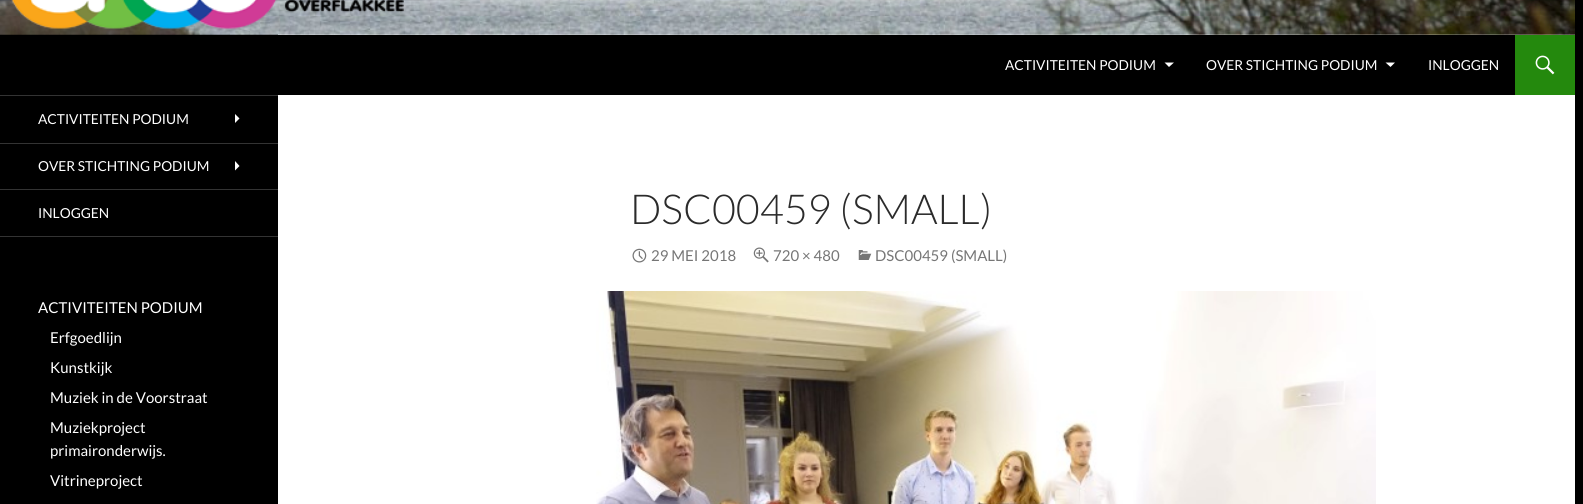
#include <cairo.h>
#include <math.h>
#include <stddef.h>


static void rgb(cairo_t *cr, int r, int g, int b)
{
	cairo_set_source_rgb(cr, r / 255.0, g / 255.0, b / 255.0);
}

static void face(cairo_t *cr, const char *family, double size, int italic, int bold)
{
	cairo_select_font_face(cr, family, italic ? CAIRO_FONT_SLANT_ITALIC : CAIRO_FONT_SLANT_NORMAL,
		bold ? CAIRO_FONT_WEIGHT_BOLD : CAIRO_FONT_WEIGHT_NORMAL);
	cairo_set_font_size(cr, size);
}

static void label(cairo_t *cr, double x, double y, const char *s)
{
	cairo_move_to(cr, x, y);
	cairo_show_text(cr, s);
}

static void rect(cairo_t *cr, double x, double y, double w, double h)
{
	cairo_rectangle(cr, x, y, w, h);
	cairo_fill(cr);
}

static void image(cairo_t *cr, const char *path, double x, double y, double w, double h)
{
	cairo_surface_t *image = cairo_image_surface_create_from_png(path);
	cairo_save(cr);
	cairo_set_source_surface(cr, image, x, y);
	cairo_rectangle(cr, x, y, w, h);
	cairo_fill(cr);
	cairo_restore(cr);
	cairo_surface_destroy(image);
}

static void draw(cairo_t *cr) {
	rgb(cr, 0, 0, 0);
	cairo_paint(cr);
	rgb(cr, 255, 255, 255);
	rect(cr, 278, 34, 1297, 470);
	image(cr, "image0.png", 0, 0, 1575, 35);
	rgb(cr, 0, 0, 0);
	rect(cr, 278, 35, 1237, 60);
	face(cr, "Lato", 13.75, 0, 0);
	rgb(cr, 255, 255, 255);
	label(cr, 1005, 70, "ACTIVITEITEN PODIUM");
	cairo_new_path(cr);
	cairo_move_to(cr, 1164.5, 62.5);
	cairo_line_to(cr, 1169, 67);
	cairo_line_to(cr, 1174, 62.5);
	cairo_close_path(cr);
	cairo_fill(cr);
	label(cr, 1206, 70, "OVER STICHTING PODIUM");
	cairo_new_path(cr);
	cairo_move_to(cr, 1385.5, 62.5);
	cairo_line_to(cr, 1390.5, 67);
	cairo_line_to(cr, 1395, 62.5);
	cairo_close_path(cr);
	cairo_fill(cr);
	label(cr, 1428, 70, "INLOGGEN");
	rgb(cr, 36, 137, 13);
	rect(cr, 1515, 35, 60, 60);
	image(cr, "image1.png", 1535, 55, 20, 20);
	rgb(cr, 51, 51, 51);
	rect(cr, 0, 236, 278, 1);
	rect(cr, 0, 95, 278, 1);
	rgb(cr, 255, 255, 255);
	label(cr, 38, 124, "ACTIVITEITEN PODIUM");
	cairo_new_path(cr);
	cairo_move_to(cr, 235, 123);
	cairo_line_to(cr, 239.5, 118.5);
	cairo_line_to(cr, 235, 114);
	cairo_close_path(cr);
	cairo_fill(cr);
	rgb(cr, 51, 51, 51);
	rect(cr, 0, 143, 278, 1);
	rgb(cr, 255, 255, 255);
	label(cr, 38, 171, "OVER STICHTING PODIUM");
	cairo_new_path(cr);
	cairo_move_to(cr, 235, 170.5);
	cairo_line_to(cr, 239.5, 166);
	cairo_line_to(cr, 235, 161);
	cairo_close_path(cr);
	cairo_fill(cr);
	rgb(cr, 51, 51, 51);
	rect(cr, 0, 189, 278, 1);
	rgb(cr, 255, 255, 255);
	label(cr, 38, 218, "INLOGGEN");
	face(cr, "Lato", 15, 0, 0);
	label(cr, 38, 313, "ACTIVITEITEN PODIUM");
	label(cr, 50, 343, "Erfgoedlijn");
	label(cr, 50, 373, "Kunstkijk");
	label(cr, 50, 403, "Muziek in de Voorstraat");
	label(cr, 50, 433, "Muziekproject");
	label(cr, 50, 456, "primaironderwijs.");
	label(cr, 50, 486, "Vitrineproject");
	face(cr, "Lato Light", 41.25, 0, 0);
	rgb(cr, 43, 43, 43);
	label(cr, 630, 224, "DSC00459 (SMALL)");
	image(cr, "image2.png", 632, 248, 15, 15);
	face(cr, "Lato", 15, 0, 0);
	rgb(cr, 118, 118, 118);
	label(cr, 651, 261, "29 MEI 2018");
	image(cr, "image3.png", 753, 247, 16, 16);
	label(cr, 773, 261, "720 × 480");
	image(cr, "image4.png", 858, 250, 14, 10);
	label(cr, 875, 261, "DSC00459 (SMALL)");
	image(cr, "image5.png", 596, 291, 780, 213);
}

int main(void) {
	cairo_surface_t *surface = cairo_image_surface_create(CAIRO_FORMAT_RGB24, 1583, 504);
	cairo_t *cr = cairo_create(surface);
	cairo_font_options_t *options = cairo_font_options_create();
	cairo_font_options_set_hint_metrics(options, CAIRO_HINT_METRICS_OFF);
	cairo_font_options_set_hint_style(options, CAIRO_HINT_STYLE_NONE);
	cairo_set_font_options(cr, options);
	cairo_set_miter_limit(cr, 4);
	draw(cr);
	cairo_surface_write_to_png(surface, "render.png");
	cairo_font_options_destroy(options);
	cairo_destroy(cr);
	cairo_surface_destroy(surface);
	return 0;
}
